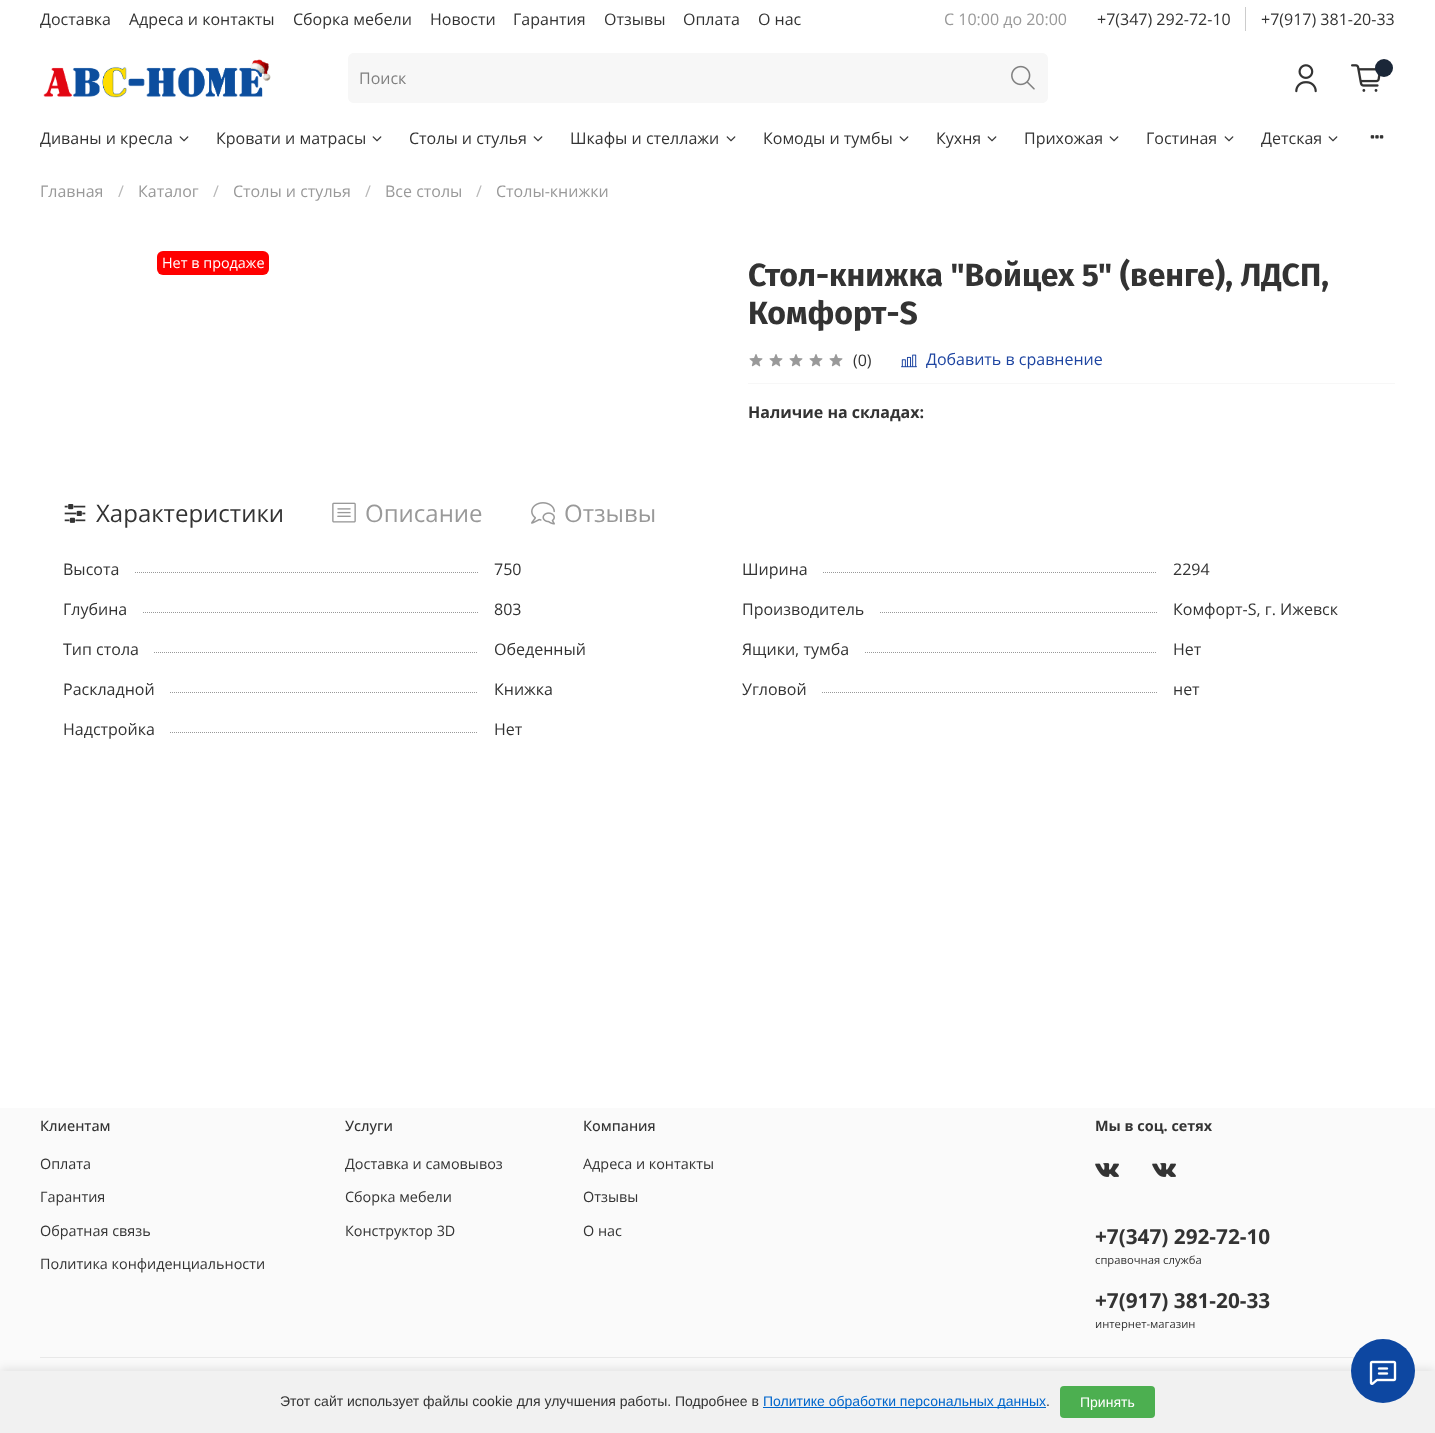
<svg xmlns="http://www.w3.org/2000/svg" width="1435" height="1433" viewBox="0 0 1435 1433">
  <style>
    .t1 { font: 16px Open Sans; fill: #333; }
    .t2 { font: 16px Open Sans; fill: #999; }
    .t3 { font: 16px Open Sans; fill: #808080; }
    .t4 { font: 16px Open Sans; fill: #b8b8b8; }
    .t5 { font: 14.4px Open Sans; fill: #fff; }
    .t6 { font: bold 32px Fira Sans; fill: #333; }
    .t7 { font: 16px Open Sans; fill: #1e45a1; }
    .t8 { font: bold 16px Open Sans; fill: #333; }
    .t9 { font: 24px Open Sans; fill: #333; }
    .t10 { font: 24px Open Sans; fill: #999; }
    .t11 { font: 500 14.4px Open Sans; fill: #333; }
    .t12 { font: 14.4px Open Sans; fill: #333; }
    .t13 { font: bold 14.4px Open Sans; fill: #333; }
    .t14 { font: bold 20.75px Open Sans; fill: #333; }
    .t15 { font: 11.25px Open Sans; fill: #333; }
    .t16 { font: 14px Liberation Sans; fill: #333; }
    .t17 { font: 14px Liberation Sans; fill: #06c; }
    .t18 { font: 14px Liberation Sans; fill: #fff; }
  </style>
  <rect width="100%" height="100%" fill="#fff"/>
  <text x="40" y="25" class="t1">Доставка</text>
  <text x="129" y="25" class="t1">Адреса и контакты</text>
  <text x="293" y="25" class="t1">Сборка мебели</text>
  <text x="430" y="25" class="t1">Новости</text>
  <text x="513" y="25" class="t1">Гарантия</text>
  <text x="604" y="25" class="t1">Отзывы</text>
  <text x="683" y="25" class="t1">Оплата</text>
  <text x="758" y="25" class="t1">О нас</text>
  <text x="944" y="25" class="t2">С 10:00 до 20:00</text>
  <rect x="1245" y="7" width="1" height="24" fill="#ccc"/>
  <text x="1097" y="25" class="t1">+7(347) 292-72-10</text>
  <text x="1261" y="25" class="t1">+7(917) 381-20-33</text>
  <image x="43" y="59" width="228" height="39" href="images/1.png"/>
  <path d="M354 53H998V103H354C350.5 103 348 100.5 348 97V59C348 55.5 350.5 53 354 53Z" fill="#f7f7f7"/>
  <text x="359" y="84" class="t3">Поиск</text>
  <path d="M998 53H1042C1045.5 53 1048 55.5 1048 59V97C1048 100.5 1045.5 103 1042 103H998Z" fill="#f7f7f7"/>
  <image x="1011" y="65" width="24" height="25" href="images/2.png"/>
  <image x="1295" y="64" width="22" height="29" href="images/3.png"/>
  <image x="1351" y="64" width="30" height="28" href="images/4.png"/>
  <circle cx="1384" cy="68" r="9" fill="#1b2738"/>
  <text x="40" y="144" class="t1">Диваны и кресла</text>
  <image x="179" y="136" width="10" height="6" href="images/5.png"/>
  <text x="216" y="144" class="t1">Кровати и матрасы</text>
  <image x="372" y="136" width="10" height="6" href="images/5.png"/>
  <text x="409" y="144" class="t1">Столы и стулья</text>
  <image x="533" y="136" width="10" height="6" href="images/5.png"/>
  <text x="570" y="144" class="t1">Шкафы и стеллажи</text>
  <image x="726" y="136" width="10" height="6" href="images/5.png"/>
  <text x="763" y="144" class="t1">Комоды и тумбы</text>
  <image x="899" y="136" width="10" height="6" href="images/5.png"/>
  <text x="936" y="144" class="t1">Кухня</text>
  <image x="987" y="136" width="10" height="6" href="images/5.png"/>
  <text x="1024" y="144" class="t1">Прихожая</text>
  <image x="1109" y="136" width="10" height="6" href="images/5.png"/>
  <text x="1146" y="144" class="t1">Гостиная</text>
  <image x="1224" y="136" width="10" height="6" href="images/5.png"/>
  <text x="1261" y="144" class="t1">Детская</text>
  <image x="1328" y="136" width="10" height="6" href="images/5.png"/>
  <image x="1370" y="135" width="14" height="4" href="images/6.png"/>
  <text x="40" y="197" class="t2">Главная</text>
  <text x="118" y="197" class="t4">/</text>
  <text x="138" y="197" class="t2">Каталог</text>
  <text x="213" y="197" class="t4">/</text>
  <text x="233" y="197" class="t2">Столы и стулья</text>
  <text x="365" y="197" class="t4">/</text>
  <text x="385" y="197" class="t2">Все столы</text>
  <text x="476" y="197" class="t4">/</text>
  <text x="496" y="197" class="t2">Столы-книжки</text>
  <rect x="157" y="251" width="112" height="24" rx="6" fill="#f00"/>
  <text x="162" y="268" class="t5">Нет в продаже</text>
  <text x="748" y="286" class="t6">Стол-книжка "Войцех 5" (венге), ЛДСП,</text>
  <text x="748" y="324" class="t6">Комфорт-S</text>
  <rect x="748" y="383" width="647" height="1" fill="#f7f7f7"/>
  <image x="749" y="354" width="14" height="13" href="images/7.png"/>
  <image x="769" y="354" width="14" height="13" href="images/7.png"/>
  <image x="789" y="354" width="14" height="13" href="images/7.png"/>
  <image x="809" y="354" width="14" height="13" href="images/7.png"/>
  <image x="829" y="354" width="14" height="13" href="images/7.png"/>
  <text x="853" y="366" class="t1">(0)</text>
  <image x="901" y="354" width="16" height="14" href="images/8.png"/>
  <text x="926" y="365" class="t7">Добавить в сравнение</text>
  <text x="748" y="418" class="t8">Наличие на складах:</text>
  <image x="64" y="504" width="22" height="19" href="images/9.png"/>
  <text x="96" y="522" class="t9">Характеристики</text>
  <image x="332" y="502" width="24" height="21" href="images/10.png"/>
  <text x="365" y="522" class="t10">Описание</text>
  <image x="531" y="502" width="24" height="23" href="images/11.png"/>
  <text x="564" y="522" class="t10">Отзывы</text>
  <text x="63" y="575" class="t1">Высота</text>
  <path d="M135 572.5H478" fill="none" stroke="#999" stroke-dasharray="1 1"/>
  <text x="494" y="575" class="t1">750</text>
  <text x="742" y="575" class="t1">Ширина</text>
  <path d="M823 572.5H1157" fill="none" stroke="#999" stroke-dasharray="1 1"/>
  <text x="1173" y="575" class="t1">2294</text>
  <text x="63" y="615" class="t1">Глубина</text>
  <path d="M143 612.5H478" fill="none" stroke="#999" stroke-dasharray="1 1"/>
  <text x="494" y="615" class="t1">803</text>
  <text x="742" y="615" class="t1">Производитель</text>
  <path d="M880 612.5H1157" fill="none" stroke="#999" stroke-dasharray="1 1"/>
  <text x="1173" y="615" class="t1">Комфорт-S, г. Ижевск</text>
  <text x="63" y="655" class="t1">Тип стола</text>
  <path d="M154 652.5H478" fill="none" stroke="#999" stroke-dasharray="1 1"/>
  <text x="494" y="655" class="t1">Обеденный</text>
  <text x="742" y="655" class="t1">Ящики, тумба</text>
  <path d="M865 652.5H1157" fill="none" stroke="#999" stroke-dasharray="1 1"/>
  <text x="1173" y="655" class="t1">Нет</text>
  <text x="63" y="695" class="t1">Раскладной</text>
  <path d="M170 692.5H478" fill="none" stroke="#999" stroke-dasharray="1 1"/>
  <text x="494" y="695" class="t1">Книжка</text>
  <text x="742" y="695" class="t1">Угловой</text>
  <path d="M822 692.5H1157" fill="none" stroke="#999" stroke-dasharray="1 1"/>
  <text x="1173" y="695" class="t1">нет</text>
  <text x="63" y="735" class="t1">Надстройка</text>
  <path d="M170 732.5H478" fill="none" stroke="#999" stroke-dasharray="1 1"/>
  <text x="494" y="735" class="t1">Нет</text>
  <rect x="0" y="1108" width="1435" height="263" fill="#fafafa"/>
  <text x="40" y="1131" class="t11">Клиентам</text>
  <text x="40" y="1169" class="t12">Оплата</text>
  <text x="40" y="1202" class="t12">Гарантия</text>
  <text x="40" y="1236" class="t12">Обратная связь</text>
  <text x="40" y="1269" class="t12">Политика конфиденциальности</text>
  <text x="345" y="1131" class="t11">Услуги</text>
  <text x="345" y="1169" class="t12">Доставка и самовывоз</text>
  <text x="345" y="1202" class="t12">Сборка мебели</text>
  <text x="345" y="1236" class="t12">Конструктор 3D</text>
  <text x="583" y="1131" class="t11">Компания</text>
  <text x="583" y="1169" class="t12">Адреса и контакты</text>
  <text x="583" y="1202" class="t12">Отзывы</text>
  <text x="583" y="1236" class="t12">О нас</text>
  <text x="1095" y="1131" class="t13">Мы в соц. сетях</text>
  <image x="1095" y="1163" width="24" height="14" href="images/12.png"/>
  <image x="1152" y="1163" width="24" height="14" href="images/12.png"/>
  <text x="1095" y="1244" class="t14">+7(347) 292-72-10</text>
  <text x="1095" y="1264" class="t15">справочная служба</text>
  <text x="1095" y="1308" class="t14">+7(917) 381-20-33</text>
  <text x="1095" y="1328" class="t15">интернет-магазин</text>
  <rect x="40" y="1357" width="1315" height="1" fill="#e8e8e8"/>
  <rect x="0" y="1369" width="1435" height="62" fill="#0000001a" filter="blur(5px)"/>
  <rect x="0" y="1371" width="1435" height="62" fill="#f1f1f1"/>
  <text x="280" y="1406" class="t16">Этот сайт использует файлы cookie для улучшения работы. Подробнее в</text>
  <rect x="763" y="1407" width="283" height="1" fill="#06c"/>
  <text x="763" y="1406" class="t17">Политике обработки персональных данных</text>
  <text x="1046" y="1406" class="t16">.</text>
  <rect x="1060" y="1386" width="95" height="32" rx="4" fill="#4caf50"/>
  <text x="1080" y="1407" class="t18">Принять</text>
  <circle cx="1383" cy="1371" r="32" fill="#0d47a1"/>
  <image x="1369" y="1360" width="28" height="25" href="images/13.png"/>
</svg>
